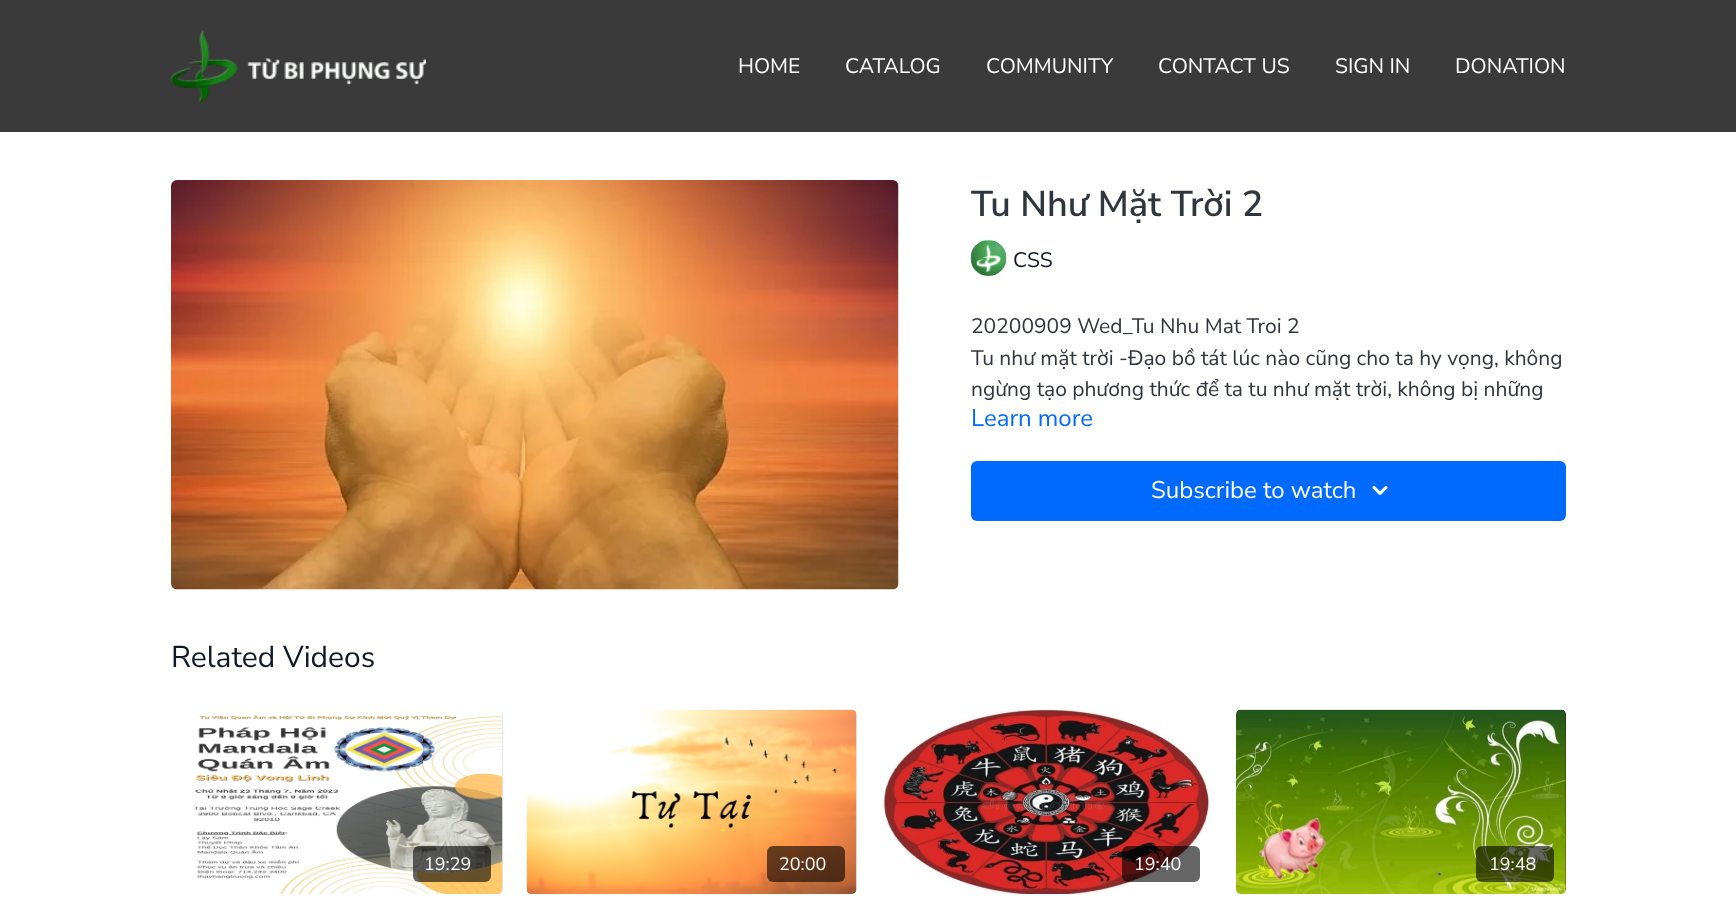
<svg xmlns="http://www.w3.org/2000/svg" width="1736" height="906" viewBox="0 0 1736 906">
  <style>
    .t1 { font: 21px Nunito Sans; fill: #fff; }
    .t2 { font: 600 36px Nunito Sans; fill: #30363e; }
    .t3 { font: 21px Nunito Sans; fill: #111827; }
    .t4 { font: 21px Nunito Sans; fill: #30363e; }
    .t5 { font: 24px Nunito Sans; fill: #006aff; }
    .t6 { font: 24px Nunito Sans; fill: #fff; }
    .t7 { font: 30px Nunito Sans; fill: #111827; }
    .t8 { font: 18px Nunito Sans; fill: #fff; }
  </style>
  <defs>
    <linearGradient id="g1" gradientUnits="userSpaceOnUse" x1="171" y1="802" x2="503" y2="802"><stop offset="0.08" stop-color="#dedede"/><stop offset="0.18" stop-color="#e0e0e0"/><stop offset="0.33" stop-color="#e3e3e3"/></linearGradient>
    <linearGradient id="g2" gradientUnits="userSpaceOnUse" x1="527" y1="802" x2="857" y2="802"><stop offset="0.08" stop-color="#dedede"/><stop offset="0.18" stop-color="#e0e0e0"/><stop offset="0.33" stop-color="#e3e3e3"/></linearGradient>
  </defs>
  <rect width="100%" height="100%" fill="#fff"/>
  <rect x="0" y="0" width="1736" height="132" fill="#3a3a3b"/>
  <image x="171" y="30" width="255" height="72" href="images/1.png"/>
  <text x="738" y="73" class="t1">HOME</text>
  <text x="845" y="73" class="t1">CATALOG</text>
  <text x="986" y="73" class="t1">COMMUNITY</text>
  <text x="1158" y="73" class="t1">CONTACT US</text>
  <text x="1335" y="73" class="t1">SIGN IN</text>
  <text x="1455" y="73" class="t1">DONATION</text>
  <image x="171" y="180" width="728" height="410" href="images/2.png"/>
  <text x="971" y="216" class="t2">Tu Như Mặt Trời 2</text>
  <image x="970" y="240" width="37" height="36" href="images/3.png"/>
  <text x="1013" y="267" class="t3">CSS</text>
  <text x="971" y="333" class="t4">20200909 Wed_Tu Nhu Mat Troi 2</text>
  <text x="971" y="365" class="t4">Tu như mặt trời -Đạo bồ tát lúc nào cũng cho ta hy vọng, không</text>
  <text x="971" y="396" class="t4">ngừng tạo phương thức để ta tu như mặt trời, không bị những</text>
  <text x="971" y="426" class="t5">Learn more</text>
  <rect x="971" y="461" width="595" height="60" rx="6" fill="#006aff"/>
  <text x="1151" y="498" class="t6">Subscribe to watch</text>
  <image x="1372" y="486" width="16" height="9" href="images/4.png"/>
  <text x="171" y="667" class="t7">Related Videos</text>
  <rect x="171" y="710" width="332" height="184" rx="6" fill="url(#g1)"/>
  <image x="171" y="710" width="332" height="184" href="images/5.png"/>
  <rect x="413" y="846" width="78" height="36" rx="6" fill="#00000099"/>
  <text x="424" y="870" class="t8">19:29</text>
  <rect x="527" y="710" width="330" height="184" rx="6" fill="url(#g2)"/>
  <image x="526" y="709" width="331" height="185" href="images/6.png"/>
  <rect x="767" y="846" width="78" height="36" rx="6" fill="#00000099"/>
  <text x="779" y="870" class="t8">20:00</text>
  <image x="881" y="709" width="331" height="185" href="images/7.png"/>
  <rect x="1122" y="846" width="78" height="36" rx="6" fill="#00000099"/>
  <text x="1134" y="870" class="t8">19:40</text>
  <image x="1236" y="709" width="330" height="185" href="images/8.png"/>
  <rect x="1476" y="846" width="78" height="36" rx="6" fill="#00000099"/>
  <text x="1489" y="870" class="t8">19:48</text>
</svg>
